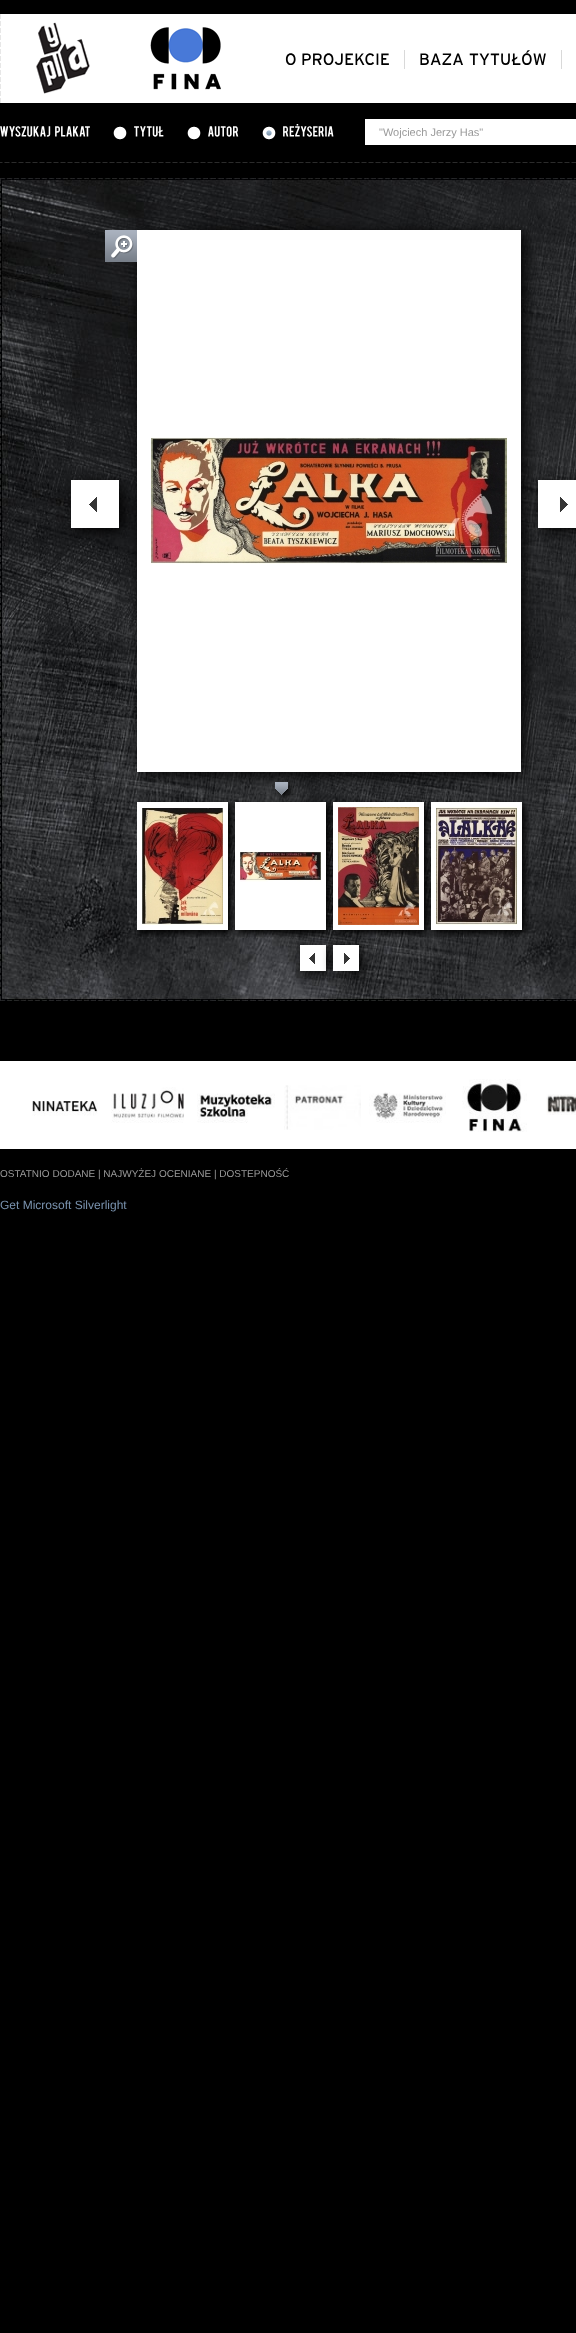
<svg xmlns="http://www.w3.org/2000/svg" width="576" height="2333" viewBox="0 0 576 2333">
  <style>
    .t1 { font: 11px Liberation Sans; fill: #9a9a9a; }
    .t2 { font: 10px Liberation Sans; fill: #9a9a9a; }
    .t3 { font: 12px Liberation Sans; fill: #7a93af; }
  </style>
  <defs>
    <clipPath id="clip1"><rect x="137" y="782" width="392" height="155"/></clipPath>
  </defs>
  <rect width="100%" height="100%" fill="#000"/>
  <rect x="90" y="14" width="486" height="89" fill="#fff"/>
  <image x="0" y="14" width="90" height="89" href="images/1.png"/>
  <image x="150" y="27" width="71" height="63" href="images/2.png"/>
  <rect x="404" y="50" width="1" height="19" fill="#d9d9d9"/>
  <image x="285" y="53" width="11" height="12" href="images/3.png"/>
  <image x="302" y="53" width="87" height="12" href="images/4.png"/>
  <rect x="561" y="50" width="1" height="19" fill="#d9d9d9"/>
  <image x="420" y="53" width="43" height="12" href="images/5.png"/>
  <image x="469" y="50" width="77" height="15" href="images/6.png"/>
  <image x="0" y="162" width="576" height="1" href="images/7.png"/>
  <image x="0" y="126" width="51" height="11" href="images/8.png"/>
  <image x="55" y="126" width="35" height="11" href="images/9.png"/>
  <image x="113" y="126" width="14" height="14" href="images/10.png"/>
  <image x="134" y="126" width="30" height="11" href="images/11.png"/>
  <image x="187" y="126" width="14" height="14" href="images/10.png"/>
  <image x="208" y="126" width="31" height="11" href="images/12.png"/>
  <image x="262" y="126" width="14" height="14" href="images/13.png"/>
  <image x="283" y="124" width="51" height="13" href="images/14.png"/>
  <rect x="365" y="119" width="211" height="26" fill="#fff"/>
  <text x="379" y="136" class="t1">"Wojciech Jerzy Has"</text>
  <image x="0" y="178" width="576" height="823" href="images/15.png"/>
  <rect x="140" y="233" width="384" height="542" fill="#000" filter="blur(7px)"/>
  <rect x="137" y="230" width="384" height="542" fill="#fff"/>
  <rect x="74" y="483" width="48" height="48" fill="#000" filter="blur(7px)"/>
  <image x="71" y="480" width="48" height="48" href="images/16.png"/>
  <image x="105" y="230" width="32" height="32" href="images/17.png"/>
  <image x="151" y="437" width="356" height="127" href="images/18.png"/>
  <rect x="541" y="483" width="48" height="48" fill="#000" filter="blur(7px)"/>
  <image x="538" y="480" width="38" height="48" href="images/19.png"/>
  <g clip-path="url(#clip1)">
    <rect x="140" y="805" width="91" height="128" fill="#000" filter="blur(3.5px)"/>
  </g>
  <rect x="137" y="802" width="91" height="128" fill="#fff"/>
  <image x="142" y="807" width="81" height="118" href="images/20.png"/>
  <g clip-path="url(#clip1)">
    <rect x="238" y="805" width="91" height="128" fill="#000" filter="blur(3.5px)"/>
  </g>
  <rect x="235" y="802" width="91" height="128" fill="#fff"/>
  <image x="275" y="782" width="19" height="18" href="images/21.png"/>
  <image x="240" y="851" width="81" height="31" href="images/22.png"/>
  <g clip-path="url(#clip1)">
    <rect x="336" y="805" width="91" height="128" fill="#000" filter="blur(3.5px)"/>
  </g>
  <rect x="333" y="802" width="91" height="128" fill="#fff"/>
  <image x="338" y="807" width="81" height="118" href="images/23.png"/>
  <g clip-path="url(#clip1)">
    <rect x="434" y="805" width="91" height="128" fill="#000" filter="blur(3.5px)"/>
  </g>
  <rect x="431" y="802" width="91" height="128" fill="#fff"/>
  <image x="436" y="807" width="81" height="118" href="images/24.png"/>
  <rect x="303" y="948" width="26" height="26" fill="#000" filter="blur(7px)"/>
  <image x="300" y="945" width="26" height="26" href="images/25.png"/>
  <rect x="336" y="948" width="26" height="26" fill="#000" filter="blur(7px)"/>
  <image x="333" y="945" width="26" height="26" href="images/26.png"/>
  <rect x="0" y="1061" width="576" height="88" fill="#fff"/>
  <image x="32" y="1101" width="66" height="15" href="images/27.png"/>
  <image x="111" y="1087" width="73" height="36" href="images/28.png"/>
  <image x="197" y="1093" width="78" height="30" href="images/29.png"/>
  <image x="284" y="1085" width="77" height="45" href="images/30.png"/>
  <image x="369" y="1092" width="77" height="31" href="images/31.png"/>
  <image x="462" y="1079" width="65" height="53" href="images/32.png"/>
  <image x="546" y="1094" width="30" height="21" href="images/33.png"/>
  <text x="0" y="1177" class="t2">OSTATNIO DODANE | NAJWYŻEJ OCENIANE | DOSTEPNOŚĆ</text>
  <text x="0" y="1209" class="t3">Get Microsoft Silverlight</text>
</svg>
